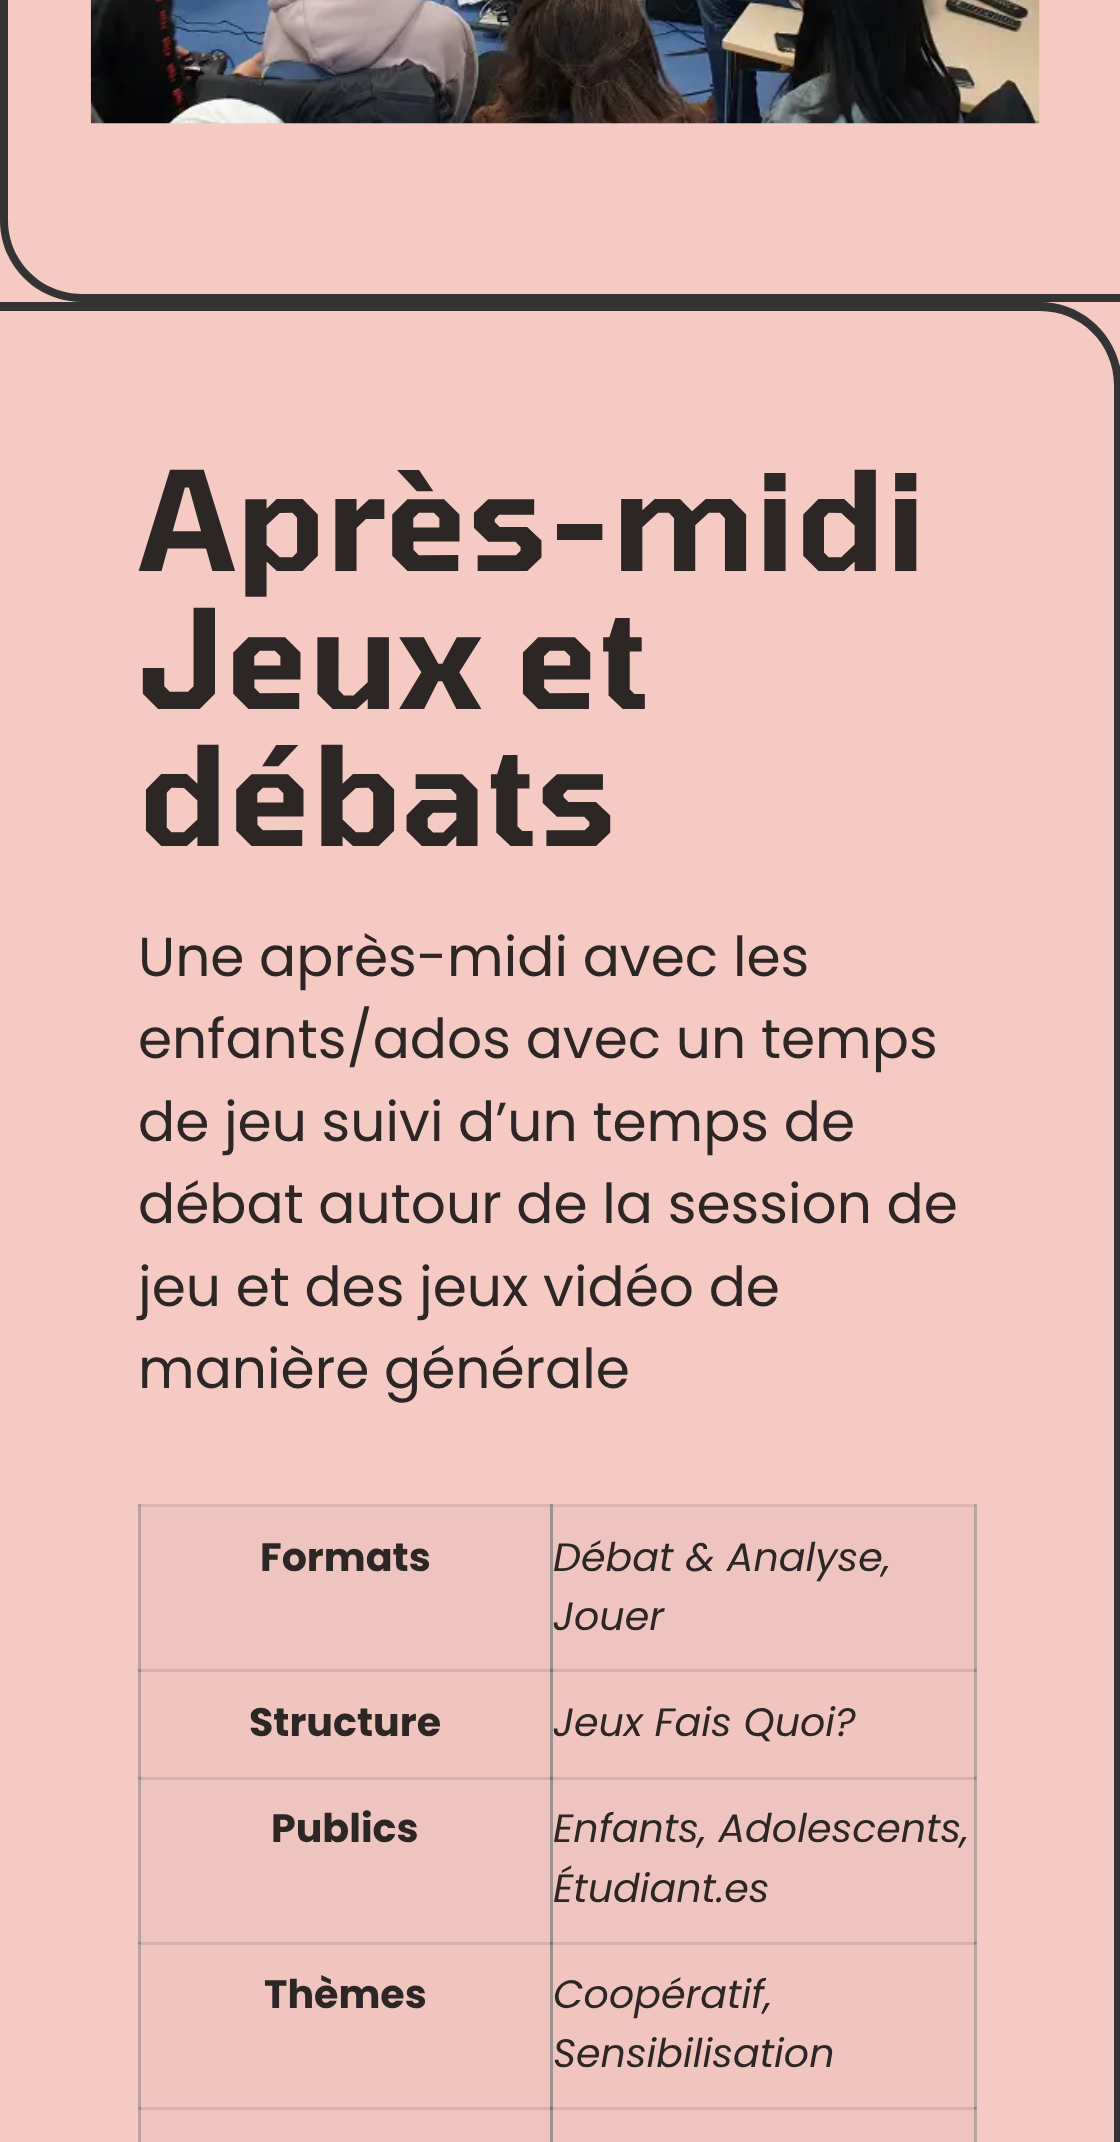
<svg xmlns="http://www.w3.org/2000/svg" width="1120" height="2142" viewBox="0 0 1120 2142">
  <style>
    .t1 { font: 600 137.5px Tomorrow; fill: #2c2625; }
    .t2 { font: 55px Poppins; fill: #2c2625; }
    .t3 { font: bold 39.6px Poppins; fill: #2c2625; }
    .t4 { font: italic 39.6px Poppins; fill: #2c2625; }
  </style>
  <rect width="100%" height="100%" fill="#f5cac3"/>
  <rect x="138" y="1504" width="2" height="638" fill="#bba5a2"/>
  <rect x="976" y="1504" width="1" height="638" fill="#bba5a2"/>
  <rect x="138" y="1669" width="3" height="3" fill="#948b89"/>
  <rect x="974" y="1669" width="3" height="3" fill="#9e9391"/>
  <rect x="138" y="1779" width="3" height="1" fill="#a89592"/>
  <rect x="138" y="1777" width="3" height="2" fill="#948b89"/>
  <rect x="974" y="1777" width="3" height="2" fill="#9e9391"/>
  <rect x="138" y="1944" width="3" height="1" fill="#a89592"/>
  <rect x="138" y="1942" width="3" height="2" fill="#948b89"/>
  <rect x="974" y="1942" width="3" height="2" fill="#9e9391"/>
  <rect x="138" y="2109" width="3" height="1" fill="#a89592"/>
  <rect x="138" y="2107" width="3" height="2" fill="#948b89"/>
  <rect x="974" y="2107" width="3" height="2" fill="#9e9391"/>
  <path d="M82-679H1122V302H82C37 302 0 266 0 220V-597C0-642 37-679 82-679ZM82-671H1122V294H82C41 294 8 261 8 220V-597C8-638 41-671 82-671Z" fill="#333" fill-rule="evenodd"/>
  <image x="90" y="0" width="950" height="124" href="images/1.png"/>
  <path d="M0 302H1040C1085 302 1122 339 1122 385V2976C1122 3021 1085 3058 1040 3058H0ZM0 311H1040C1081 311 1114 344 1114 385V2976C1114 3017 1081 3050 1040 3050H0Z" fill="#333" fill-rule="evenodd"/>
  <text x="138" y="571" class="t1">Après-midi</text>
  <text x="138" y="709" class="t1">Jeux et</text>
  <text x="138" y="846" class="t1">débats</text>
  <text x="138" y="976" class="t2">Une après-midi avec les</text>
  <text x="138" y="1058" class="t2">enfants/ados avec un temps</text>
  <text x="138" y="1141" class="t2">de jeu suivi d’un temps de</text>
  <text x="138" y="1223" class="t2">débat autour de la session de</text>
  <text x="138" y="1306" class="t2">jeu et des jeux vidéo de</text>
  <text x="138" y="1388" class="t2">manière générale</text>
  <rect x="138" y="1504" width="838" height="3" fill="#ddb6b0"/>
  <rect x="138" y="1504" width="3" height="3" fill="#af9b98"/>
  <rect x="550" y="1504" width="3" height="3" fill="#988e8c"/>
  <rect x="974" y="1504" width="2" height="3" fill="#af9b98"/>
  <rect x="141" y="1507" width="409" height="162" fill="#edc5be"/>
  <rect x="140" y="1507" width="1" height="165" fill="#b7a39f"/>
  <rect x="140" y="1669" width="836" height="3" fill="#d5b1ab"/>
  <rect x="550" y="1507" width="3" height="270" fill="#9c9290"/>
  <rect x="140" y="1669" width="1" height="3" fill="#938a88"/>
  <rect x="550" y="1669" width="3" height="3" fill="#767474"/>
  <text x="260" y="1571" class="t3">Formats</text>
  <rect x="553" y="1507" width="421" height="162" fill="#edc5be"/>
  <rect x="974" y="1507" width="2" height="165" fill="#b7a39f"/>
  <rect x="974" y="1669" width="2" height="3" fill="#8c8382"/>
  <text x="553" y="1571" class="t4">Débat &amp; Analyse,</text>
  <text x="553" y="1630" class="t4">Jouer</text>
  <rect x="141" y="1672" width="409" height="105" fill="#efc5be"/>
  <rect x="140" y="1672" width="1" height="105" fill="#b8a39f"/>
  <text x="249" y="1736" class="t3">Structure</text>
  <rect x="553" y="1672" width="421" height="105" fill="#efc5be"/>
  <rect x="974" y="1672" width="2" height="105" fill="#b8a39f"/>
  <text x="553" y="1736" class="t4">Jeux Fais Quoi?</text>
  <rect x="141" y="1780" width="409" height="162" fill="#edc5be"/>
  <rect x="140" y="1777" width="836" height="3" fill="#d5b1ab"/>
  <rect x="140" y="1777" width="1" height="167" fill="#b7a39f"/>
  <rect x="140" y="1777" width="1" height="3" fill="#a5938f"/>
  <rect x="140" y="1777" width="1" height="2" fill="#938a88"/>
  <rect x="140" y="1942" width="836" height="2" fill="#d5b1ab"/>
  <rect x="550" y="1777" width="3" height="167" fill="#9c9290"/>
  <rect x="550" y="1779" width="3" height="1" fill="#7e7675"/>
  <rect x="550" y="1777" width="3" height="2" fill="#767474"/>
  <rect x="140" y="1942" width="1" height="2" fill="#938a88"/>
  <rect x="550" y="1942" width="3" height="2" fill="#767474"/>
  <text x="271" y="1842" class="t3">Publics</text>
  <rect x="553" y="1780" width="421" height="162" fill="#edc5be"/>
  <rect x="974" y="1777" width="2" height="167" fill="#b7a39f"/>
  <rect x="974" y="1777" width="2" height="3" fill="#a5938f"/>
  <rect x="974" y="1777" width="2" height="2" fill="#8c8382"/>
  <rect x="974" y="1942" width="2" height="2" fill="#8c8382"/>
  <text x="553" y="1842" class="t4">Enfants, Adolescents,</text>
  <text x="553" y="1902" class="t4">Étudiant.es</text>
  <rect x="141" y="1945" width="409" height="162" fill="#efc5be"/>
  <rect x="140" y="1944" width="836" height="1" fill="#d7b1ab"/>
  <rect x="140" y="1944" width="1" height="165" fill="#b8a39f"/>
  <rect x="140" y="1944" width="1" height="1" fill="#a6938f"/>
  <rect x="140" y="2107" width="836" height="2" fill="#d7b1ab"/>
  <rect x="550" y="1944" width="3" height="165" fill="#9c9290"/>
  <rect x="550" y="1944" width="3" height="1" fill="#7e7675"/>
  <rect x="140" y="2107" width="1" height="2" fill="#938a88"/>
  <text x="264" y="2008" class="t3">Thèmes</text>
  <rect x="553" y="1945" width="421" height="162" fill="#efc5be"/>
  <rect x="974" y="1944" width="2" height="165" fill="#b8a39f"/>
  <rect x="974" y="1944" width="2" height="1" fill="#a6938f"/>
  <rect x="974" y="2107" width="2" height="2" fill="#8c8382"/>
  <text x="553" y="2008" class="t4">Coopératif,</text>
  <text x="553" y="2067" class="t4">Sensibilisation</text>
  <rect x="141" y="2110" width="409" height="32" fill="#edc5be"/>
  <rect x="140" y="2109" width="836" height="1" fill="#d5b1ab"/>
  <rect x="140" y="2109" width="1" height="33" fill="#b7a39f"/>
  <rect x="140" y="2109" width="1" height="1" fill="#a5938f"/>
  <rect x="550" y="2107" width="3" height="35" fill="#9c9290"/>
  <rect x="550" y="2109" width="3" height="1" fill="#7e7675"/>
  <rect x="550" y="2107" width="3" height="2" fill="#767474"/>
  <rect x="553" y="2110" width="421" height="32" fill="#edc5be"/>
  <rect x="974" y="2109" width="2" height="33" fill="#b7a39f"/>
  <rect x="974" y="2109" width="2" height="1" fill="#a5938f"/>
</svg>
